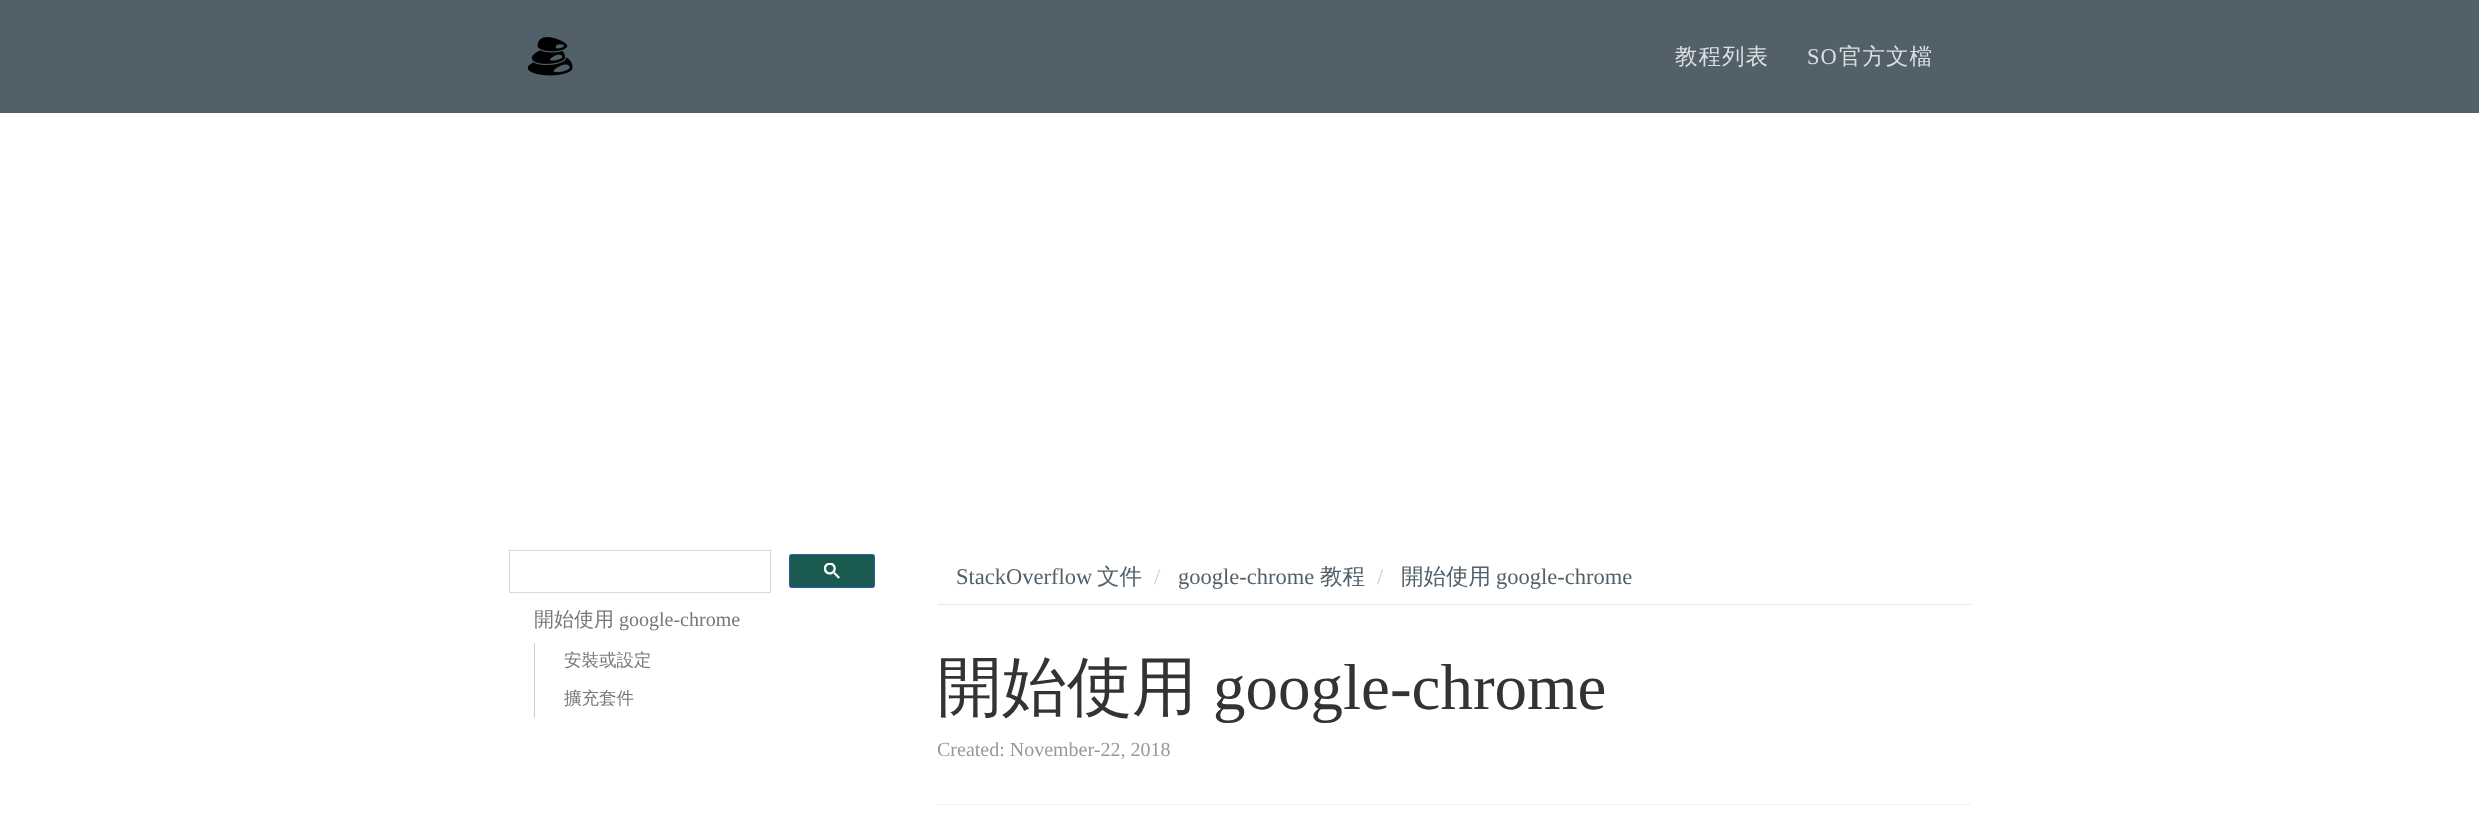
<svg xmlns="http://www.w3.org/2000/svg" width="2479" height="818" viewBox="0 0 2479 818">
  <style>
    .t1 { font: 500 22.5px WenQuanYi Zen Hei; letter-spacing: 1px; fill: #dcdfe1; }
    .t2 { font: 22.5px Liberation Serif; letter-spacing: 1px; fill: #dcdfe1; }
    .t3 { font: 500 20px WenQuanYi Zen Hei; fill: #777; }
    .t4 { font: 20px Liberation Serif; fill: #777; }
    .t5 { font: 500 17.5px WenQuanYi Zen Hei; fill: #777; }
    .t6 { font: 22.5px Liberation Serif; fill: #526069; }
    .t7 { font: 500 22.5px WenQuanYi Zen Hei; fill: #526069; }
    .t8 { font: 22.5px Liberation Serif; fill: #ccc; }
    .t9 { font: 500 65px WenQuanYi Zen Hei; fill: #333; }
    .t10 { font: 65px Liberation Serif; fill: #333; }
    .t11 { font: 20px Liberation Serif; fill: #999; }
  </style>
  <rect width="100%" height="100%" fill="#fff"/>
  <rect x="0" y="0" width="2479" height="113" fill="#526069"/>
  <image x="528" y="37" width="45" height="39" href="images/1.png"/>
  <text x="1675" y="64" class="t1">教程列表</text>
  <text x="1807" y="64" class="t2">SO</text>
  <text x="1839" y="64" class="t1">官方文檔</text>
  <rect x="509.5" y="550.5" width="261" height="42" fill="none" stroke="#d9d9d9"/>
  <rect x="789.5" y="554.5" width="85" height="33" rx="2" fill="#1b5a50" stroke="#2f5bb7"/>
  <image x="824" y="563" width="16" height="16" href="images/2.png"/>
  <text x="534" y="626" class="t3">開始使用</text>
  <text x="619" y="626" class="t4">google-chrome</text>
  <rect x="534" y="643" width="1" height="75" fill="#ccc"/>
  <text x="564" y="666" class="t5">安裝或設定</text>
  <text x="564" y="704" class="t5">擴充套件</text>
  <rect x="938" y="604" width="1033" height="1" fill="#e7e7e7"/>
  <text x="956" y="584" class="t6">StackOverflow</text>
  <text x="1097" y="584" class="t7">文件</text>
  <text x="1154" y="584" class="t8">/</text>
  <text x="1178" y="584" class="t6">google-chrome</text>
  <text x="1320" y="584" class="t7">教程</text>
  <text x="1377" y="584" class="t8">/</text>
  <text x="1401" y="584" class="t7">開始使用</text>
  <text x="1496" y="584" class="t6">google-chrome</text>
  <rect x="938" y="804" width="1033" height="1" fill="#f1f1f1"/>
  <text x="937" y="709" class="t9">開始使用</text>
  <text x="1213" y="709" class="t10">google-chrome</text>
  <text x="937" y="756" class="t11">Created: November-22, 2018</text>
</svg>
